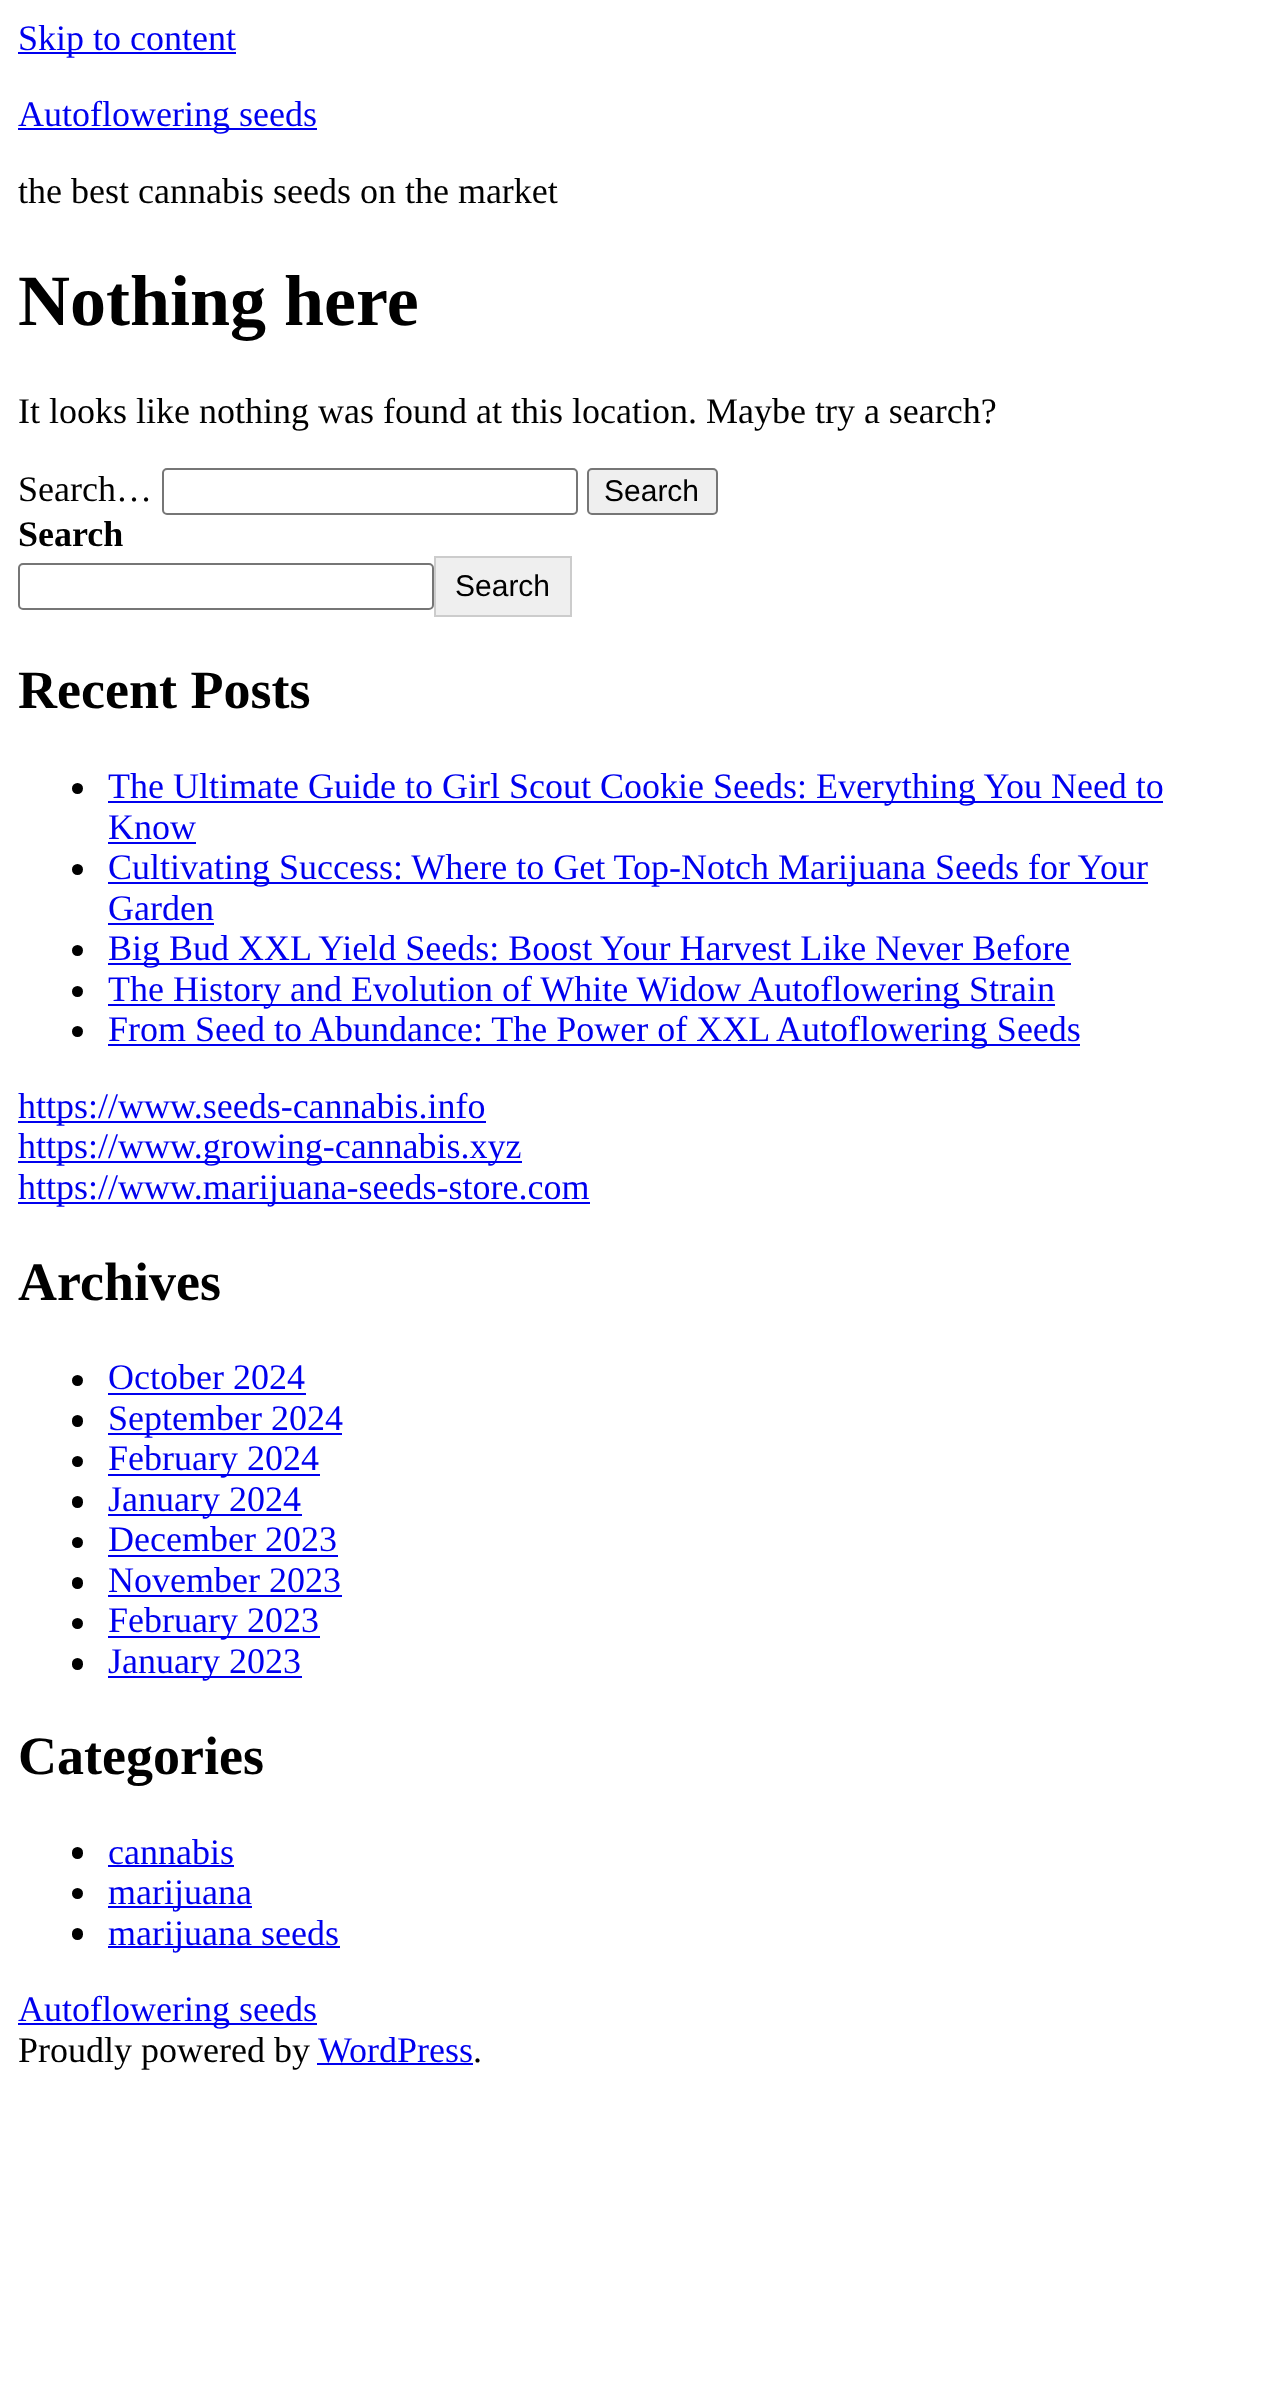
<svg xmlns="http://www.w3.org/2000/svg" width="1268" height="2389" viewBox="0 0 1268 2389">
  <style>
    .t1 { font: 36px Liberation Serif; fill: #00e; }
    .t2 { font: 36px Liberation Serif; fill: #000; }
    .t3 { font: bold 72px Liberation Serif; fill: #000; }
    .t4 { font: 30px Liberation Sans; fill: #000; }
    .t5 { font: bold 36px Liberation Serif; fill: #000; }
    .t6 { font: bold 54px Liberation Serif; fill: #000; }
  </style>
  <rect width="100%" height="100%" fill="#fff"/>
  <rect x="18" y="52" width="218" height="2" fill="#00e"/>
  <text x="18" y="50" class="t1">Skip to content</text>
  <rect x="18" y="128" width="299" height="2" fill="#00e"/>
  <text x="18" y="126" class="t1">Autoflowering seeds</text>
  <text x="18" y="203" class="t2">the best cannabis seeds on the market</text>
  <text x="18" y="325" class="t3">Nothing here</text>
  <text x="18" y="423" class="t2">It looks like nothing was found at this location. Maybe try a search?</text>
  <text x="18" y="501" class="t2">Search…</text>
  <rect x="163" y="469" width="414" height="45" rx="4" fill="none" stroke="#767676" stroke-width="2"/>
  <rect x="588" y="469" width="129" height="45" rx="4" fill="#efefef" stroke="#767676" stroke-width="2"/>
  <text x="604" y="501" class="t4">Search</text>
  <text x="18" y="546" class="t5">Search</text>
  <rect x="19" y="564" width="414" height="45" rx="4" fill="none" stroke="#767676" stroke-width="2"/>
  <rect x="435" y="557" width="136" height="59" fill="#efefef" stroke="#ccc" stroke-width="2"/>
  <text x="455" y="596" class="t4">Search</text>
  <text x="18" y="708" class="t6">Recent Posts</text>
  <circle cx="77.5" cy="788.5" r="5.5" fill="#000"/>
  <rect x="108" y="801" width="1055" height="2" fill="#00e"/>
  <text x="108" y="798" class="t1">The Ultimate Guide to Girl Scout Cookie Seeds: Everything You Need to</text>
  <text x="108" y="839" class="t1">Know</text>
  <rect x="108" y="842" width="88" height="2" fill="#00e"/>
  <circle cx="77.5" cy="869.5" r="5.5" fill="#000"/>
  <rect x="108" y="882" width="1040" height="2" fill="#00e"/>
  <text x="108" y="879" class="t1">Cultivating Success: Where to Get Top-Notch Marijuana Seeds for Your</text>
  <text x="108" y="920" class="t1">Garden</text>
  <rect x="108" y="923" width="106" height="2" fill="#00e"/>
  <circle cx="77.5" cy="950.5" r="5.5" fill="#000"/>
  <rect x="108" y="963" width="963" height="2" fill="#00e"/>
  <text x="108" y="960" class="t1">Big Bud XXL Yield Seeds: Boost Your Harvest Like Never Before</text>
  <circle cx="77.5" cy="991.5" r="5.5" fill="#000"/>
  <rect x="108" y="1004" width="947" height="2" fill="#00e"/>
  <text x="108" y="1001" class="t1">The History and Evolution of White Widow Autoflowering Strain</text>
  <circle cx="77.5" cy="1031.5" r="5.5" fill="#000"/>
  <rect x="108" y="1044" width="972" height="2" fill="#00e"/>
  <text x="108" y="1041" class="t1">From Seed to Abundance: The Power of XXL Autoflowering Seeds</text>
  <rect x="18" y="1121" width="468" height="2" fill="#00e"/>
  <text x="18" y="1118" class="t1">https://www.seeds-cannabis.info</text>
  <rect x="18" y="1161" width="504" height="2" fill="#00e"/>
  <text x="18" y="1158" class="t1">https://www.growing-cannabis.xyz</text>
  <rect x="18" y="1202" width="572" height="2" fill="#00e"/>
  <text x="18" y="1199" class="t1">https://www.marijuana-seeds-store.com</text>
  <text x="18" y="1300" class="t6">Archives</text>
  <circle cx="77.5" cy="1380.5" r="5.5" fill="#000"/>
  <text x="108" y="1389" class="t1">October 2024</text>
  <rect x="108" y="1393" width="198" height="2" fill="#00e"/>
  <rect x="72" y="1415" width="11" height="12" rx="5.5" fill="#000"/>
  <rect x="108" y="1433" width="234" height="2" fill="#00e"/>
  <text x="108" y="1430" class="t1">September 2024</text>
  <circle cx="77.5" cy="1461.5" r="5.5" fill="#000"/>
  <rect x="108" y="1474" width="212" height="2" fill="#00e"/>
  <text x="108" y="1470" class="t1">February 2024</text>
  <rect x="72" y="1496" width="11" height="12" rx="5.5" fill="#000"/>
  <rect x="108" y="1514" width="194" height="2" fill="#00e"/>
  <text x="108" y="1511" class="t1">January 2024</text>
  <circle cx="77.5" cy="1542.5" r="5.5" fill="#000"/>
  <text x="108" y="1551" class="t1">December 2023</text>
  <rect x="108" y="1555" width="230" height="2" fill="#00e"/>
  <rect x="72" y="1577" width="11" height="12" rx="5.5" fill="#000"/>
  <text x="108" y="1592" class="t1">November 2023</text>
  <rect x="108" y="1595" width="234" height="2" fill="#00e"/>
  <circle cx="77.5" cy="1623.5" r="5.5" fill="#000"/>
  <rect x="108" y="1636" width="212" height="2" fill="#00e"/>
  <text x="108" y="1632" class="t1">February 2023</text>
  <rect x="72" y="1658" width="11" height="12" rx="5.5" fill="#000"/>
  <rect x="108" y="1676" width="194" height="2" fill="#00e"/>
  <text x="108" y="1673" class="t1">January 2023</text>
  <text x="18" y="1774" class="t6">Categories</text>
  <rect x="72" y="1847" width="11" height="12" rx="5.5" fill="#000"/>
  <text x="108" y="1864" class="t1">cannabis</text>
  <rect x="108" y="1865" width="126" height="2" fill="#00e"/>
  <circle cx="77.5" cy="1893.5" r="5.5" fill="#000"/>
  <rect x="108" y="1906" width="144" height="2" fill="#00e"/>
  <text x="108" y="1904" class="t1">marijuana</text>
  <rect x="72" y="1928" width="11" height="12" rx="5.5" fill="#000"/>
  <rect x="108" y="1946" width="232" height="2" fill="#00e"/>
  <text x="108" y="1945" class="t1">marijuana seeds</text>
  <rect x="18" y="2023" width="299" height="2" fill="#00e"/>
  <text x="18" y="2021" class="t1">Autoflowering seeds</text>
  <text x="18" y="2062" class="t2">Proudly powered by</text>
  <text x="318" y="2062" class="t1">WordPress</text>
  <rect x="317" y="2063" width="156" height="2" fill="#00e"/>
  <text x="473" y="2062" class="t2">.</text>
</svg>
